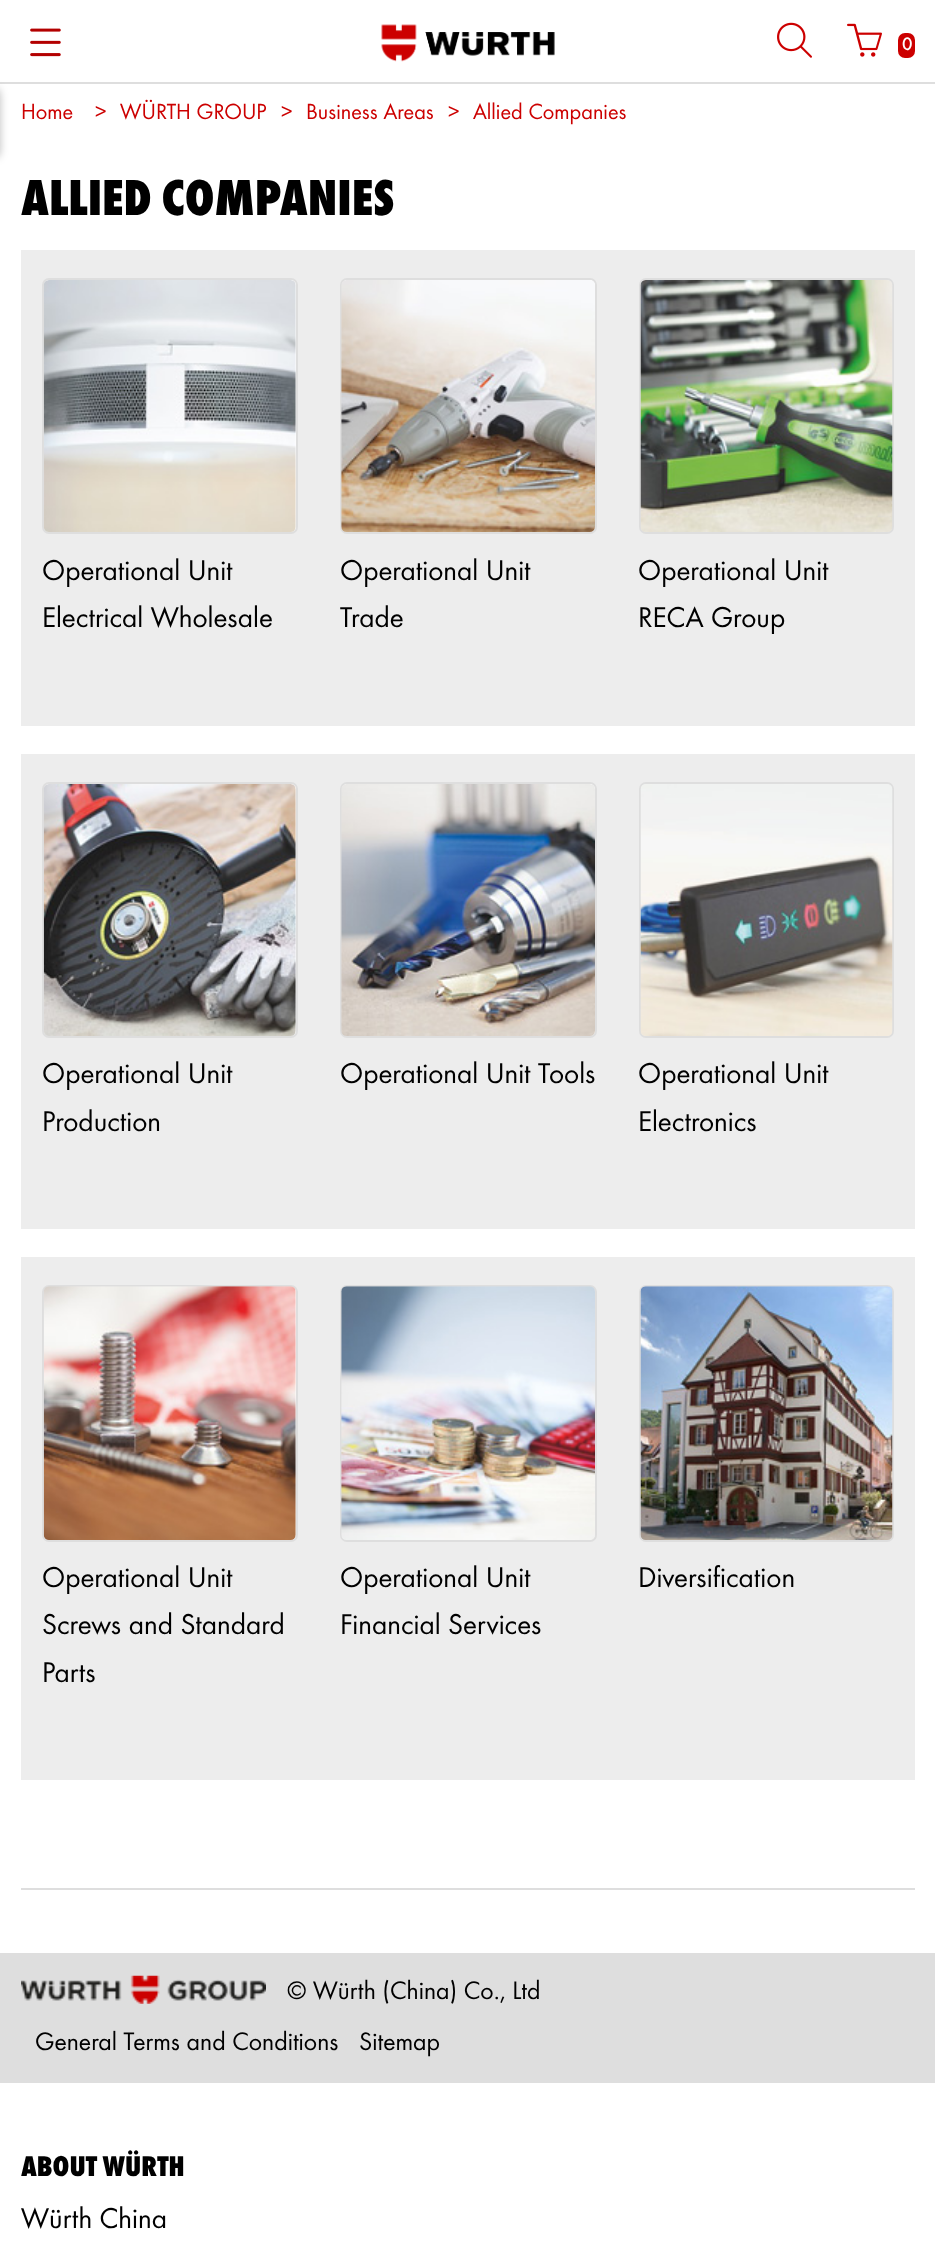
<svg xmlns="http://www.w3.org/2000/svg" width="935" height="2260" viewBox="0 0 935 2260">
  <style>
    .t1 { font: bold 18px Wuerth; fill: #fff; }
    .t2 { font: 22.75px Wuerth; fill: #c00; }
    .t3 { font: 800 52.5px Wuerth; fill: #000; }
    .t4 { font: 29.75px Wuerth; fill: #000; }
    .t5 { font: 26.25px Wuerth; fill: #000; }
    .t6 { font: 800 29.75px Wuerth; fill: #000; }
  </style>
  <rect width="100%" height="100%" fill="#fff"/>
  <rect x="0" y="82" width="935" height="2" fill="#dedede"/>
  <image x="30" y="28" width="31" height="29" href="images/1.png"/>
  <image x="381" y="24" width="174" height="38" href="images/2.png"/>
  <image x="777" y="22" width="35" height="36" href="images/3.png"/>
  <image x="847" y="23" width="35" height="34" href="images/4.png"/>
  <rect x="898" y="33" width="17" height="25" rx="7" fill="#c00"/>
  <text x="902" y="50" class="t1">0</text>
  <rect x="-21" y="88" width="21" height="70" rx="7" fill="#00000042" filter="blur(4.5px)"/>
  <text x="21" y="119" class="t2">Home</text>
  <text x="95" y="119" class="t2">&gt;</text>
  <text x="120" y="119" class="t2">WÜRTH GROUP</text>
  <text x="281" y="119" class="t2">&gt;</text>
  <text x="306" y="119" class="t2">Business Areas</text>
  <text x="448" y="119" class="t2">&gt;</text>
  <text x="473" y="119" class="t2">Allied Companies</text>
  <text x="21" y="215" class="t3">ALLIED COMPANIES</text>
  <rect x="21" y="250" width="894" height="476" fill="#ededed"/>
  <rect x="43" y="279" width="254" height="254" rx="6" fill="#fff" stroke="#dedede" stroke-width="2"/>
  <image x="43" y="280" width="253" height="252" href="images/5.png"/>
  <text x="42" y="580" class="t4">Operational Unit</text>
  <text x="42" y="627" class="t4">Electrical Wholesale</text>
  <rect x="341" y="279" width="255" height="254" rx="6" fill="#fff" stroke="#dedede" stroke-width="2"/>
  <image x="341" y="280" width="254" height="252" href="images/6.png"/>
  <text x="340" y="580" class="t4">Operational Unit</text>
  <text x="340" y="627" class="t4">Trade</text>
  <rect x="640" y="279" width="253" height="254" rx="6" fill="none" stroke="#dedede" stroke-width="2"/>
  <image x="640" y="280" width="253" height="252" href="images/7.png"/>
  <text x="638" y="580" class="t4">Operational Unit</text>
  <text x="638" y="627" class="t4">RECA Group</text>
  <rect x="21" y="754" width="894" height="475" fill="#ededed"/>
  <rect x="43" y="783" width="254" height="254" rx="6" fill="#fff" stroke="#dedede" stroke-width="2"/>
  <image x="43" y="784" width="253" height="252" href="images/8.png"/>
  <text x="42" y="1083" class="t4">Operational Unit</text>
  <text x="42" y="1131" class="t4">Production</text>
  <rect x="341" y="783" width="255" height="254" rx="6" fill="#fff" stroke="#dedede" stroke-width="2"/>
  <image x="341" y="784" width="254" height="252" href="images/9.png"/>
  <text x="340" y="1083" class="t4">Operational Unit Tools</text>
  <rect x="640" y="783" width="253" height="254" rx="6" fill="none" stroke="#dedede" stroke-width="2"/>
  <image x="640" y="784" width="253" height="252" href="images/10.png"/>
  <text x="638" y="1083" class="t4">Operational Unit</text>
  <text x="638" y="1131" class="t4">Electronics</text>
  <rect x="21" y="1257" width="894" height="523" fill="#ededed"/>
  <rect x="43" y="1286" width="254" height="255" rx="6" fill="#fff" stroke="#dedede" stroke-width="2"/>
  <image x="43" y="1286" width="253" height="254" href="images/11.png"/>
  <text x="42" y="1587" class="t4">Operational Unit</text>
  <text x="42" y="1634" class="t4">Screws and Standard</text>
  <text x="42" y="1682" class="t4">Parts</text>
  <rect x="341" y="1286" width="255" height="255" rx="6" fill="none" stroke="#dedede" stroke-width="2"/>
  <image x="341" y="1286" width="254" height="254" href="images/12.png"/>
  <text x="340" y="1587" class="t4">Operational Unit</text>
  <text x="340" y="1634" class="t4">Financial Services</text>
  <rect x="640" y="1286" width="253" height="255" rx="6" fill="none" stroke="#dedede" stroke-width="2"/>
  <image x="640" y="1286" width="253" height="254" href="images/13.png"/>
  <text x="638" y="1587" class="t4">Diversification</text>
  <rect x="21" y="1888" width="894" height="2" fill="#dedede"/>
  <rect x="0" y="1953" width="935" height="130" fill="#dedede"/>
  <image x="21" y="1975" width="245" height="29" href="images/14.png"/>
  <text x="287" y="1999" class="t5">© Würth (China) Co., Ltd</text>
  <text x="35" y="2050" class="t5">General Terms and Conditions</text>
  <text x="359" y="2050" class="t5">Sitemap</text>
  <text x="21" y="2176" class="t6">ABOUT WÜRTH</text>
  <text x="21" y="2228" class="t4">Würth China</text>
</svg>
